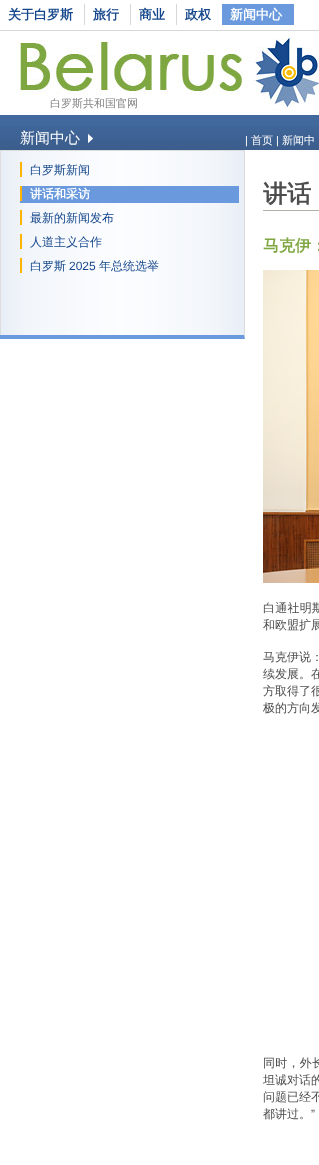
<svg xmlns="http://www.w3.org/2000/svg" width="319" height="1165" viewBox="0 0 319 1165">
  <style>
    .t1 { font: bold 13px WenQuanYi Zen Hei; fill: #15478c; }
    .t2 { font: bold 13px WenQuanYi Zen Hei; fill: #fff; }
    .t3 { font: 500 11px WenQuanYi Zen Hei; fill: #818181; }
    .t4 { font: 500 15px WenQuanYi Zen Hei; fill: #fff; }
    .t5 { font: 500 12px WenQuanYi Zen Hei; fill: #15478c; }
    .t6 { font: bold 12px WenQuanYi Zen Hei; fill: #fff; }
    .t7 { font: 12px Liberation Sans; fill: #15478c; }
    .t8 { font: 11px Liberation Sans; fill: #fff; }
    .t9 { font: 500 11px WenQuanYi Zen Hei; fill: #fff; }
    .t10 { font: bold 24px WenQuanYi Zen Hei; fill: #4d4d4d; }
    .t11 { font: bold 16px WenQuanYi Zen Hei; fill: #7ea741; }
    .t12 { font: 500 12px WenQuanYi Zen Hei; letter-spacing: 0.25px; fill: #4d4d4d; }
    .t13 { font: 500 12px WenQuanYi Zen Hei; fill: #4d4d4d; }
    .t14 { font: 12px Liberation Sans; fill: #4d4d4d; }
  </style>
  <rect width="100%" height="100%" fill="#fff"/>
  <rect x="0" y="30" width="319" height="1" fill="#d7d7d7"/>
  <text x="8" y="19" class="t1">关于白罗斯</text>
  <text x="93" y="19" class="t1">旅行</text>
  <rect x="84" y="4" width="1" height="21" fill="#d7d7d7"/>
  <text x="139" y="19" class="t1">商业</text>
  <rect x="130" y="4" width="1" height="21" fill="#d7d7d7"/>
  <text x="185" y="19" class="t1">政权</text>
  <rect x="176" y="4" width="1" height="21" fill="#d7d7d7"/>
  <rect x="222" y="4" width="72" height="21" fill="#6a9add"/>
  <text x="230" y="19" class="t2">新闻中心</text>
  <image x="16" y="33" width="303" height="78" href="images/1.png"/>
  <text x="50" y="107" class="t3">白罗斯共和国官网</text>
  <rect x="0" y="115" width="319" height="11" fill="#42699e"/>
  <image x="0" y="126" width="245" height="24" href="images/2.png"/>
  <text x="20" y="143" class="t4">新闻中心</text>
  <image x="88" y="133" width="6" height="10" href="images/3.png"/>
  <image x="0" y="151" width="244" height="184" href="images/4.png"/>
  <rect x="0" y="150" width="245" height="1" fill="#dcdcdc"/>
  <path d="M245 150V339L244 335V151Z" fill="#dcdcdc"/>
  <path d="M245 339H0V335H244Z" fill="#6a9add"/>
  <rect x="20" y="162" width="2" height="15" fill="#ffb400"/>
  <text x="30" y="174" class="t5">白罗斯新闻</text>
  <rect x="20" y="186" width="219" height="17" fill="#6a9add"/>
  <rect x="20" y="186" width="2" height="15" fill="#ffb400"/>
  <text x="30" y="198" class="t6">讲话和采访</text>
  <rect x="20" y="210" width="2" height="15" fill="#ffb400"/>
  <text x="30" y="222" class="t5">最新的新闻发布</text>
  <rect x="20" y="234" width="2" height="15" fill="#ffb400"/>
  <text x="30" y="246" class="t5">人道主义合作</text>
  <rect x="20" y="258" width="2" height="15" fill="#ffb400"/>
  <text x="30" y="270" class="t5">白罗斯</text>
  <text x="69" y="270" class="t7">2025</text>
  <text x="99" y="270" class="t5">年总统选举</text>
  <image x="245" y="126" width="74" height="24" href="images/5.png"/>
  <text x="245" y="144" class="t8">|</text>
  <text x="251" y="144" class="t9">首页</text>
  <text x="276" y="144" class="t8">|</text>
  <text x="282" y="144" class="t9">新闻中</text>
  <rect x="263" y="210" width="56" height="1" fill="#b0b0a6"/>
  <text x="263" y="202" class="t10">讲话</text>
  <text x="263" y="251" class="t11">马克伊：</text>
  <image x="263" y="270" width="56" height="313" href="images/6.png"/>
  <text x="263" y="612" class="t12">白通社明斯</text>
  <text x="263" y="629" class="t13">和欧盟扩展</text>
  <text x="263" y="661" class="t13">马克伊说：</text>
  <text x="263" y="678" class="t13">续发展。在</text>
  <text x="263" y="695" class="t13">方取得了很</text>
  <text x="263" y="712" class="t13">极的方向发</text>
  <text x="263" y="1067" class="t12">同时，外长</text>
  <text x="263" y="1084" class="t13">坦诚对话的</text>
  <text x="263" y="1101" class="t13">问题已经不</text>
  <text x="263" y="1118" class="t13">都讲过。</text>
  <text x="311" y="1118" class="t14">”</text>
</svg>
